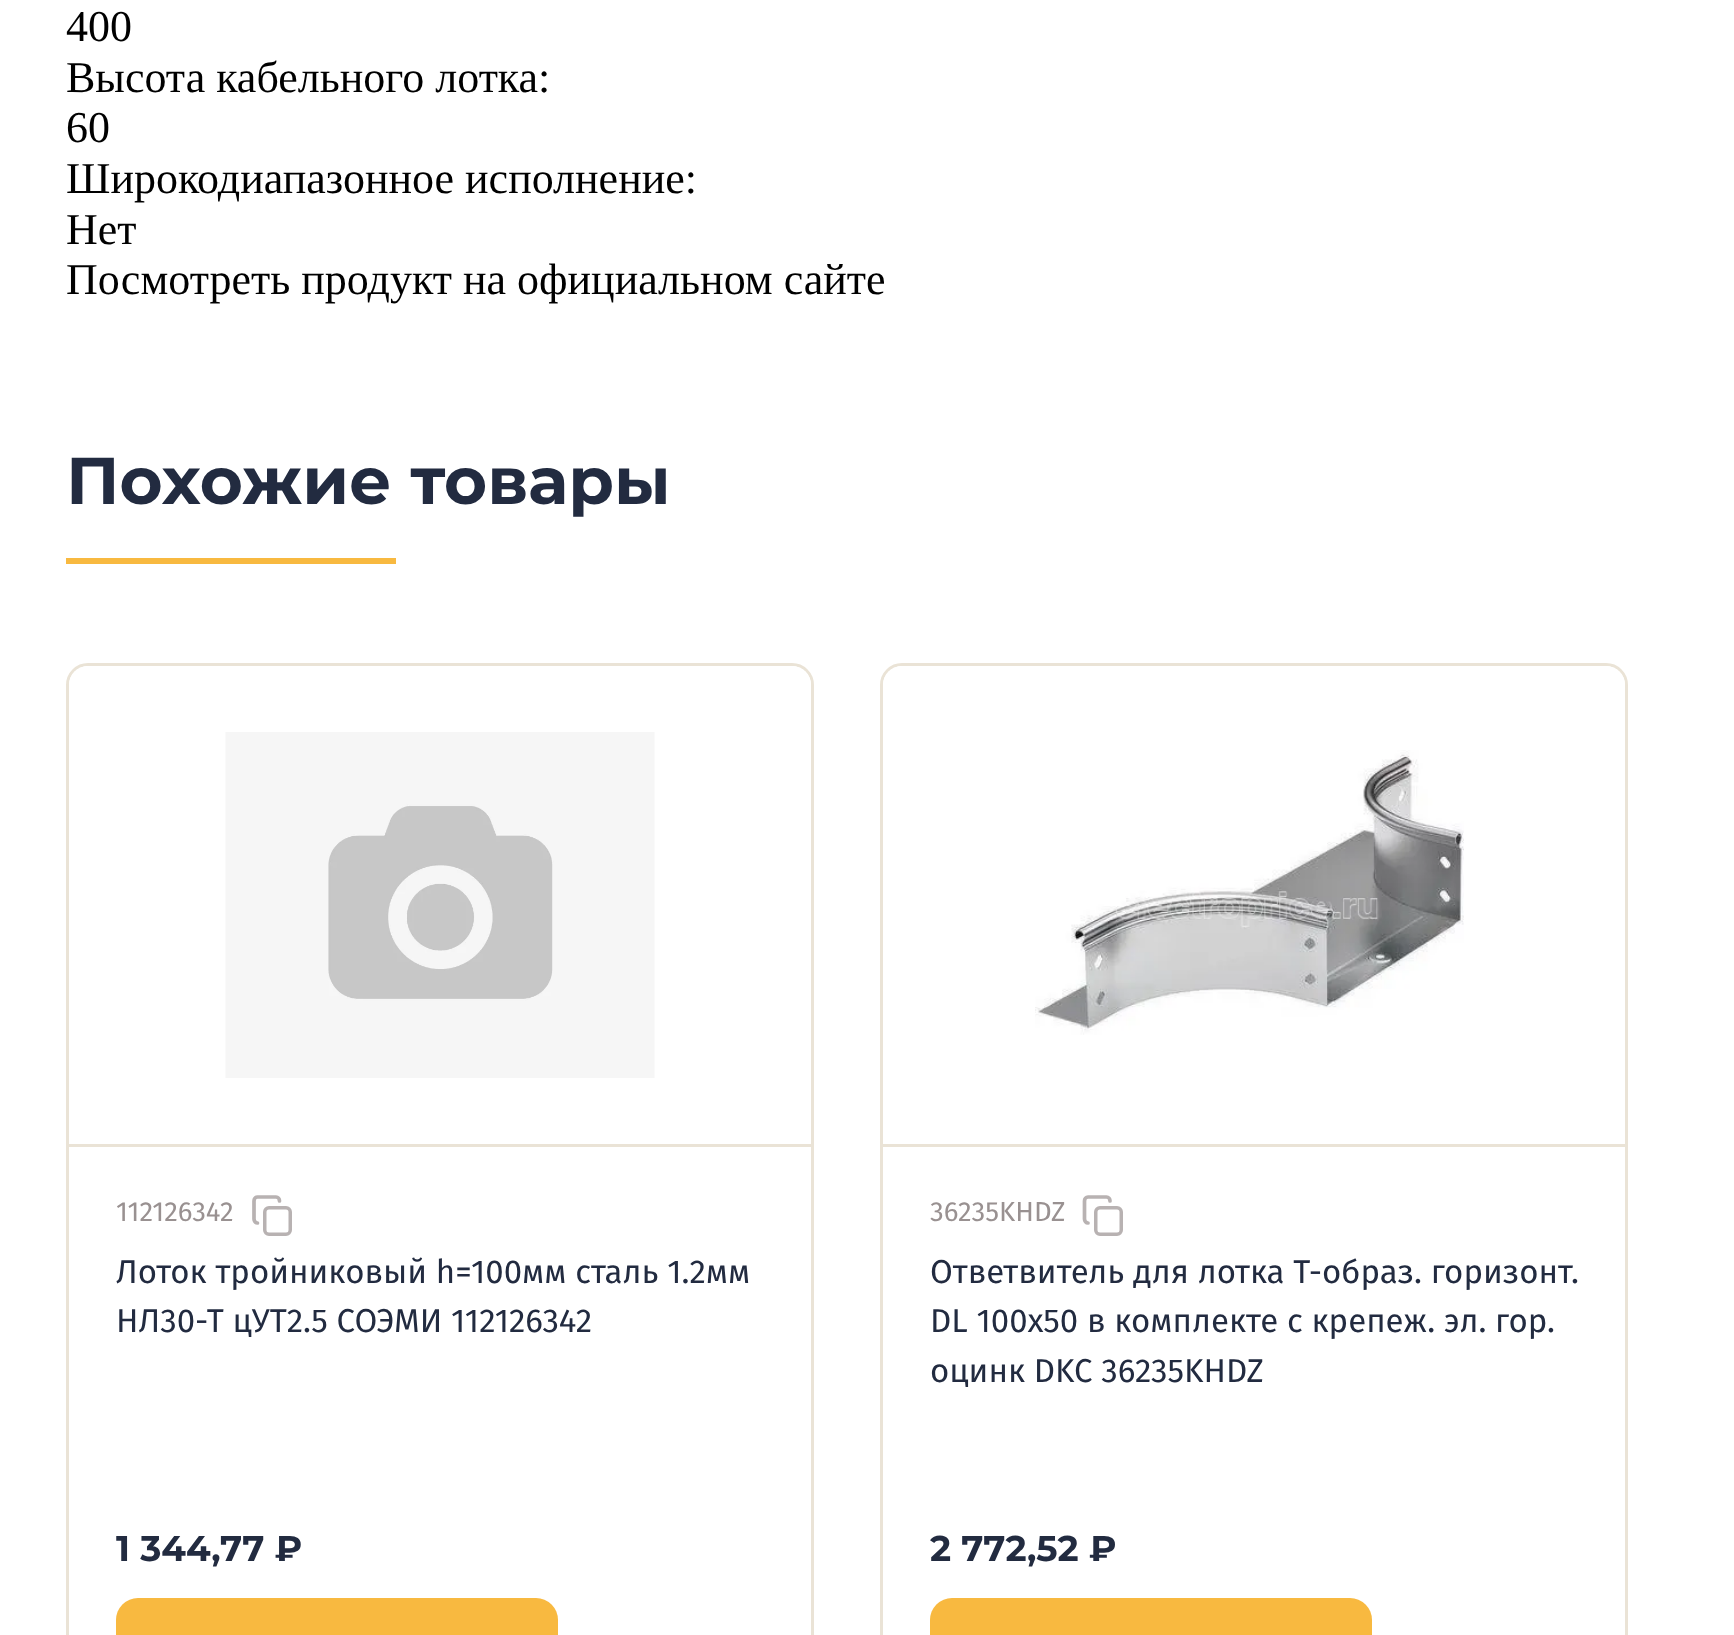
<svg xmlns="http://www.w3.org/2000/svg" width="1734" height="1635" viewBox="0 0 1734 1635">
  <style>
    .t1 { font: 44px Liberation Serif; fill: #000; }
    .t2 { font: bold 66px Montserrat; fill: #222b40; }
    .t3 { font: 27.5px Fira Sans; fill: #999191; }
    .t4 { font: 33px Fira Sans; fill: #222b40; }
    .t5 { font: bold 35.75px Montserrat; fill: #222b40; }
  </style>
  <rect width="100%" height="100%" fill="#fff"/>
  <text x="66" y="41" class="t1">400</text>
  <text x="66" y="92" class="t1">Высота кабельного лотка:</text>
  <text x="66" y="142" class="t1">60</text>
  <text x="66" y="193" class="t1">Широкодиапазонное исполнение:</text>
  <text x="66" y="244" class="t1">Нет</text>
  <text x="66" y="294" class="t1">Посмотреть продукт на официальном сайте</text>
  <text x="66" y="504" class="t2">Похожие товары</text>
  <rect x="66" y="558" width="330" height="6" fill="#f8b940"/>
  <rect x="67.5" y="664.5" width="745" height="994" rx="20.5" fill="none" stroke="#eae3d6" stroke-width="3"/>
  <path d="M88 666H792C802.5 666 811 674.5 811 685V1147H69V685C69 674.5 77.5 666 88 666Z" fill="#fff"/>
  <rect x="69" y="1144" width="742" height="3" fill="#eae3d6"/>
  <image x="225" y="732" width="430" height="346" href="images/1.png"/>
  <text x="116" y="1221" class="t3">112126342</text>
  <rect x="264.75" y="1207.75" width="25.5" height="26.5" rx="4.25" fill="none" stroke="#b8b2b2" stroke-width="3.5"/>
  <path d="M257.5 1223C255.5 1223 254 1221 254 1219V1201C254 1199 255.5 1197 257.5 1197H276C278 1197 279.5 1199 279.5 1201" fill="none" stroke="#b8b2b2" stroke-width="3.7" stroke-linecap="round" stroke-linejoin="round"/>
  <text x="116" y="1283" class="t4">Лоток тройниковый h=100мм сталь 1.2мм</text>
  <text x="116" y="1332" class="t4">НЛ30-Т цУТ2.5 СОЭМИ 112126342</text>
  <text x="116" y="1561" class="t5">1 344,77 ₽</text>
  <rect x="116" y="1598" width="442" height="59" rx="22" fill="#f8b940"/>
  <rect x="881.5" y="664.5" width="745" height="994" rx="20.5" fill="none" stroke="#eae3d6" stroke-width="3"/>
  <path d="M902 666H1606C1616.5 666 1625 674.5 1625 685V1147H883V685C883 674.5 891.5 666 902 666Z" fill="#fff"/>
  <rect x="883" y="1144" width="742" height="3" fill="#eae3d6"/>
  <image x="1035" y="750" width="429" height="285" href="images/2.png"/>
  <text x="930" y="1221" class="t3">36235KHDZ</text>
  <rect x="1095.75" y="1207.75" width="25.5" height="26.5" rx="4.25" fill="none" stroke="#b8b2b2" stroke-width="3.5"/>
  <path d="M1088 1223C1086 1223 1084.5 1221 1084.5 1219V1201C1084.5 1199 1086 1197 1088 1197H1106.5C1108.5 1197 1110 1199 1110 1201" fill="none" stroke="#b8b2b2" stroke-width="3.7" stroke-linecap="round" stroke-linejoin="round"/>
  <text x="930" y="1283" class="t4">Ответвитель для лотка Т-образ. горизонт.</text>
  <text x="930" y="1332" class="t4">DL 100х50 в комплекте с крепеж. эл. гор.</text>
  <text x="930" y="1382" class="t4">оцинк DKC 36235KHDZ</text>
  <text x="930" y="1561" class="t5">2 772,52 ₽</text>
  <rect x="930" y="1598" width="442" height="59" rx="22" fill="#f8b940"/>
</svg>
